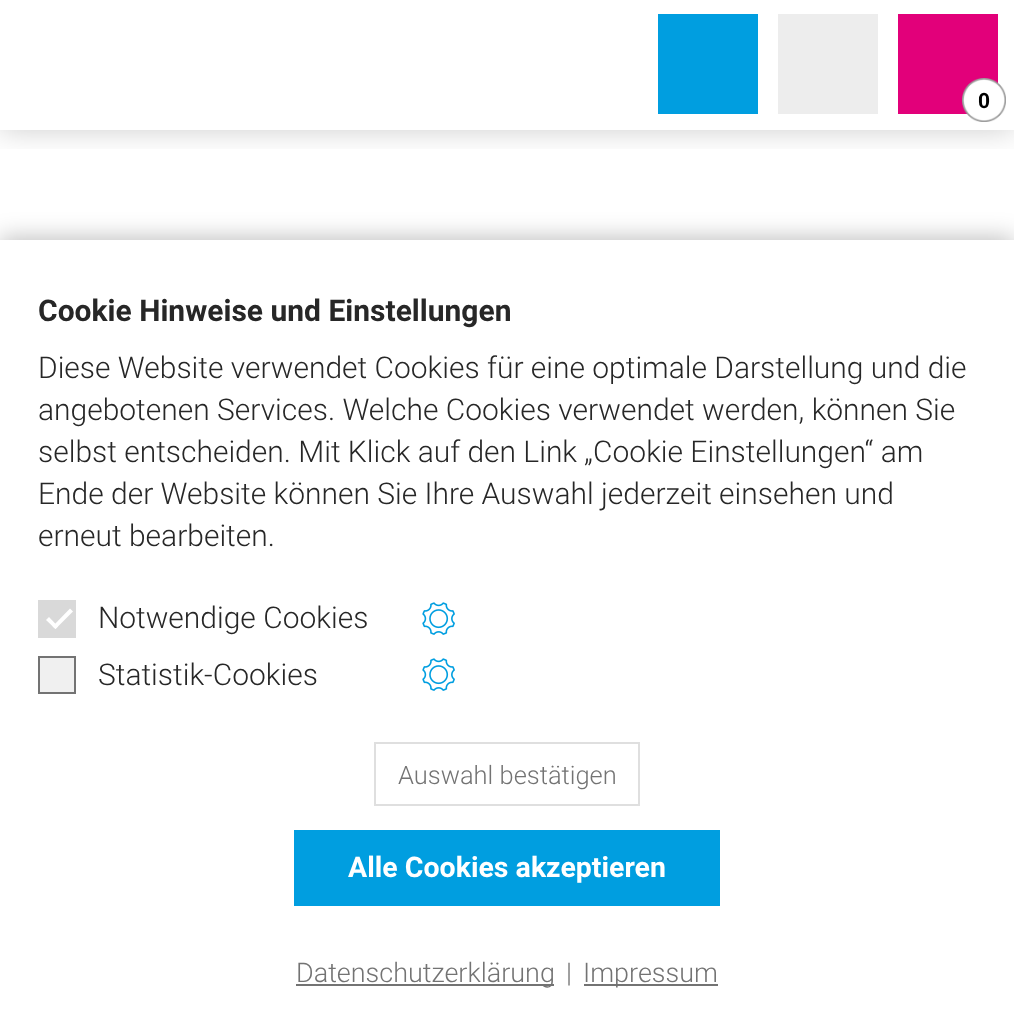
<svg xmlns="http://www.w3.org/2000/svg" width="1014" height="1031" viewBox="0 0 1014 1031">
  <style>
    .t1 { font: bold 21px Roboto; fill: #000; }
    .t2 { font: bold 30px Roboto; fill: #272727; }
    .t3 { font: 300 30px Roboto; fill: #272727; }
    .t4 { font: 300 25.5px Roboto; fill: #737373; }
    .t5 { font: bold 28.5px Roboto; fill: #fff; }
    .t6 { font: 300 27px Roboto; fill: #737373; }
  </style>
  <defs>
    <clipPath id="clip1"><rect x="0" y="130" width="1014" height="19"/></clipPath>
  </defs>
  <rect width="100%" height="100%" fill="#fff"/>
  <g clip-path="url(#clip1)">
    <rect x="0" y="0" width="1014" height="130" fill="#00000033" filter="blur(15px)"/>
  </g>
  <rect x="658" y="14" width="100" height="100" fill="#009ee0"/>
  <rect x="778" y="14" width="100" height="100" fill="#ededed"/>
  <rect x="898" y="14" width="100" height="100" fill="#e2007a"/>
  <image x="962" y="78" width="44" height="44" href="images/1.png"/>
  <text x="978" y="108" class="t1">0</text>
  <rect x="0" y="238" width="1014" height="792" fill="#00000042" filter="blur(12px)"/>
  <rect x="0" y="240" width="1014" height="791" fill="#fff"/>
  <text x="38" y="321" class="t2">Cookie Hinweise und Einstellungen</text>
  <text x="38" y="378" class="t3">Diese Website verwendet Cookies für eine optimale Darstellung und die</text>
  <text x="38" y="420" class="t3">angebotenen Services. Welche Cookies verwendet werden, können Sie</text>
  <text x="38" y="462" class="t3">selbst entscheiden. Mit Klick auf den Link „Cookie Einstellungen“ am</text>
  <text x="38" y="504" class="t3">Ende der Website können Sie Ihre Auswahl jederzeit einsehen und</text>
  <text x="38" y="546" class="t3">erneut bearbeiten.</text>
  <rect x="38" y="600" width="38" height="38" fill="#d9d9d9"/>
  <path d="M70 608.5L73 611.5L55.5 629L52.5 626.5Z" fill="#fff"/>
  <path d="M49 617L58 626.5L55.5 629L46 620Z" fill="#fff"/>
  <text x="98" y="628" class="t3">Notwendige Cookies</text>
  <image x="422" y="602" width="33" height="33" href="images/2.png"/>
  <rect x="39" y="657" width="36" height="36" fill="#f0f0f0" stroke="#737373" stroke-width="2"/>
  <text x="98" y="685" class="t3">Statistik-Cookies</text>
  <image x="422" y="658" width="33" height="33" href="images/2.png"/>
  <rect x="375" y="743" width="264" height="62" fill="none" stroke="#dfdfdf" stroke-width="2"/>
  <text x="398" y="784" class="t4">Auswahl bestätigen</text>
  <rect x="294" y="830" width="426" height="76" fill="#009ee0"/>
  <text x="348" y="877" class="t5">Alle Cookies akzeptieren</text>
  <rect x="296" y="984" width="258" height="2" fill="#737373"/>
  <text x="296" y="982" class="t6">Datenschutzerklärung</text>
  <text x="566" y="982" class="t6">|</text>
  <rect x="584" y="984" width="134" height="2" fill="#737373"/>
  <text x="583" y="982" class="t6">Impressum</text>
</svg>
